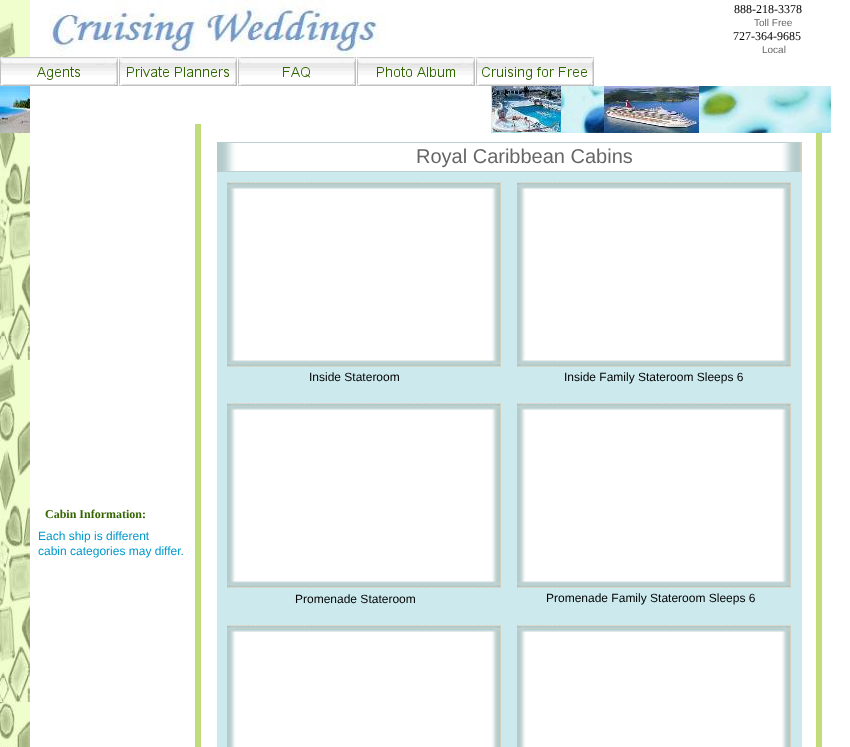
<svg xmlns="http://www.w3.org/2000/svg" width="850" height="747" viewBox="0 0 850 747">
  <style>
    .t1 { font: 12px Liberation Serif; fill: #000; }
    .t2 { font: 10px Liberation Sans; fill: #666; }
    .t3 { font: 20px Liberation Sans; fill: #666; }
    .t4 { font: 12px Liberation Sans; fill: #000; }
    .t5 { font: bold 12px Liberation Serif; fill: #360; }
    .t6 { font: 12px Liberation Sans; fill: #09c; }
  </style>
  <rect width="100%" height="100%" fill="#fff"/>
  <image x="0" y="0" width="30" height="360" href="images/1.png"/>
  <image x="49" y="0" width="337" height="56" href="images/2.png"/>
  <text x="734" y="13" class="t1">888-218-3378</text>
  <text x="754" y="26" class="t2">Toll Free</text>
  <text x="733" y="40" class="t1">727-364-9685</text>
  <text x="762" y="53" class="t2">Local</text>
  <image x="0" y="57" width="118" height="29" href="images/3.png"/>
  <image x="119" y="57" width="118" height="29" href="images/4.png"/>
  <image x="238" y="57" width="118" height="29" href="images/5.png"/>
  <image x="357" y="57" width="118" height="29" href="images/6.png"/>
  <image x="476" y="57" width="118" height="29" href="images/7.png"/>
  <image x="0" y="86" width="30" height="47" href="images/8.png"/>
  <image x="491" y="86" width="340" height="47" href="images/9.png"/>
  <image x="492" y="86" width="69" height="46" href="images/10.png"/>
  <image x="604" y="86" width="95" height="47" href="images/11.png"/>
  <rect x="195" y="124" width="6" height="623" fill="#c0dc7b"/>
  <image x="217" y="142" width="585" height="30" href="images/12.png"/>
  <rect x="816" y="133" width="6" height="614" fill="#c0dc7b"/>
  <text x="416" y="163" class="t3">Royal Caribbean Cabins</text>
  <rect x="217" y="172" width="585" height="575" fill="#cceaee"/>
  <image x="227" y="182" width="274" height="185" href="images/13.png"/>
  <image x="517" y="182" width="274" height="185" href="images/14.png"/>
  <image x="0" y="360" width="30" height="342" href="images/15.png"/>
  <text x="309" y="381" class="t4">Inside Stateroom</text>
  <text x="564" y="381" class="t4">Inside Family Stateroom Sleeps 6</text>
  <text x="45" y="518" class="t5">Cabin Information:</text>
  <image x="227" y="403" width="274" height="185" href="images/13.png"/>
  <image x="517" y="403" width="274" height="185" href="images/14.png"/>
  <text x="38" y="540" class="t6">Each ship is different</text>
  <text x="38" y="555" class="t6">cabin categories may differ.</text>
  <text x="295" y="603" class="t4">Promenade Stateroom</text>
  <text x="546" y="602" class="t4">Promenade Family Stateroom Sleeps 6</text>
  <image x="0" y="702" width="30" height="45" href="images/16.png"/>
  <image x="227" y="625" width="274" height="122" href="images/17.png"/>
  <image x="517" y="625" width="274" height="122" href="images/18.png"/>
</svg>
